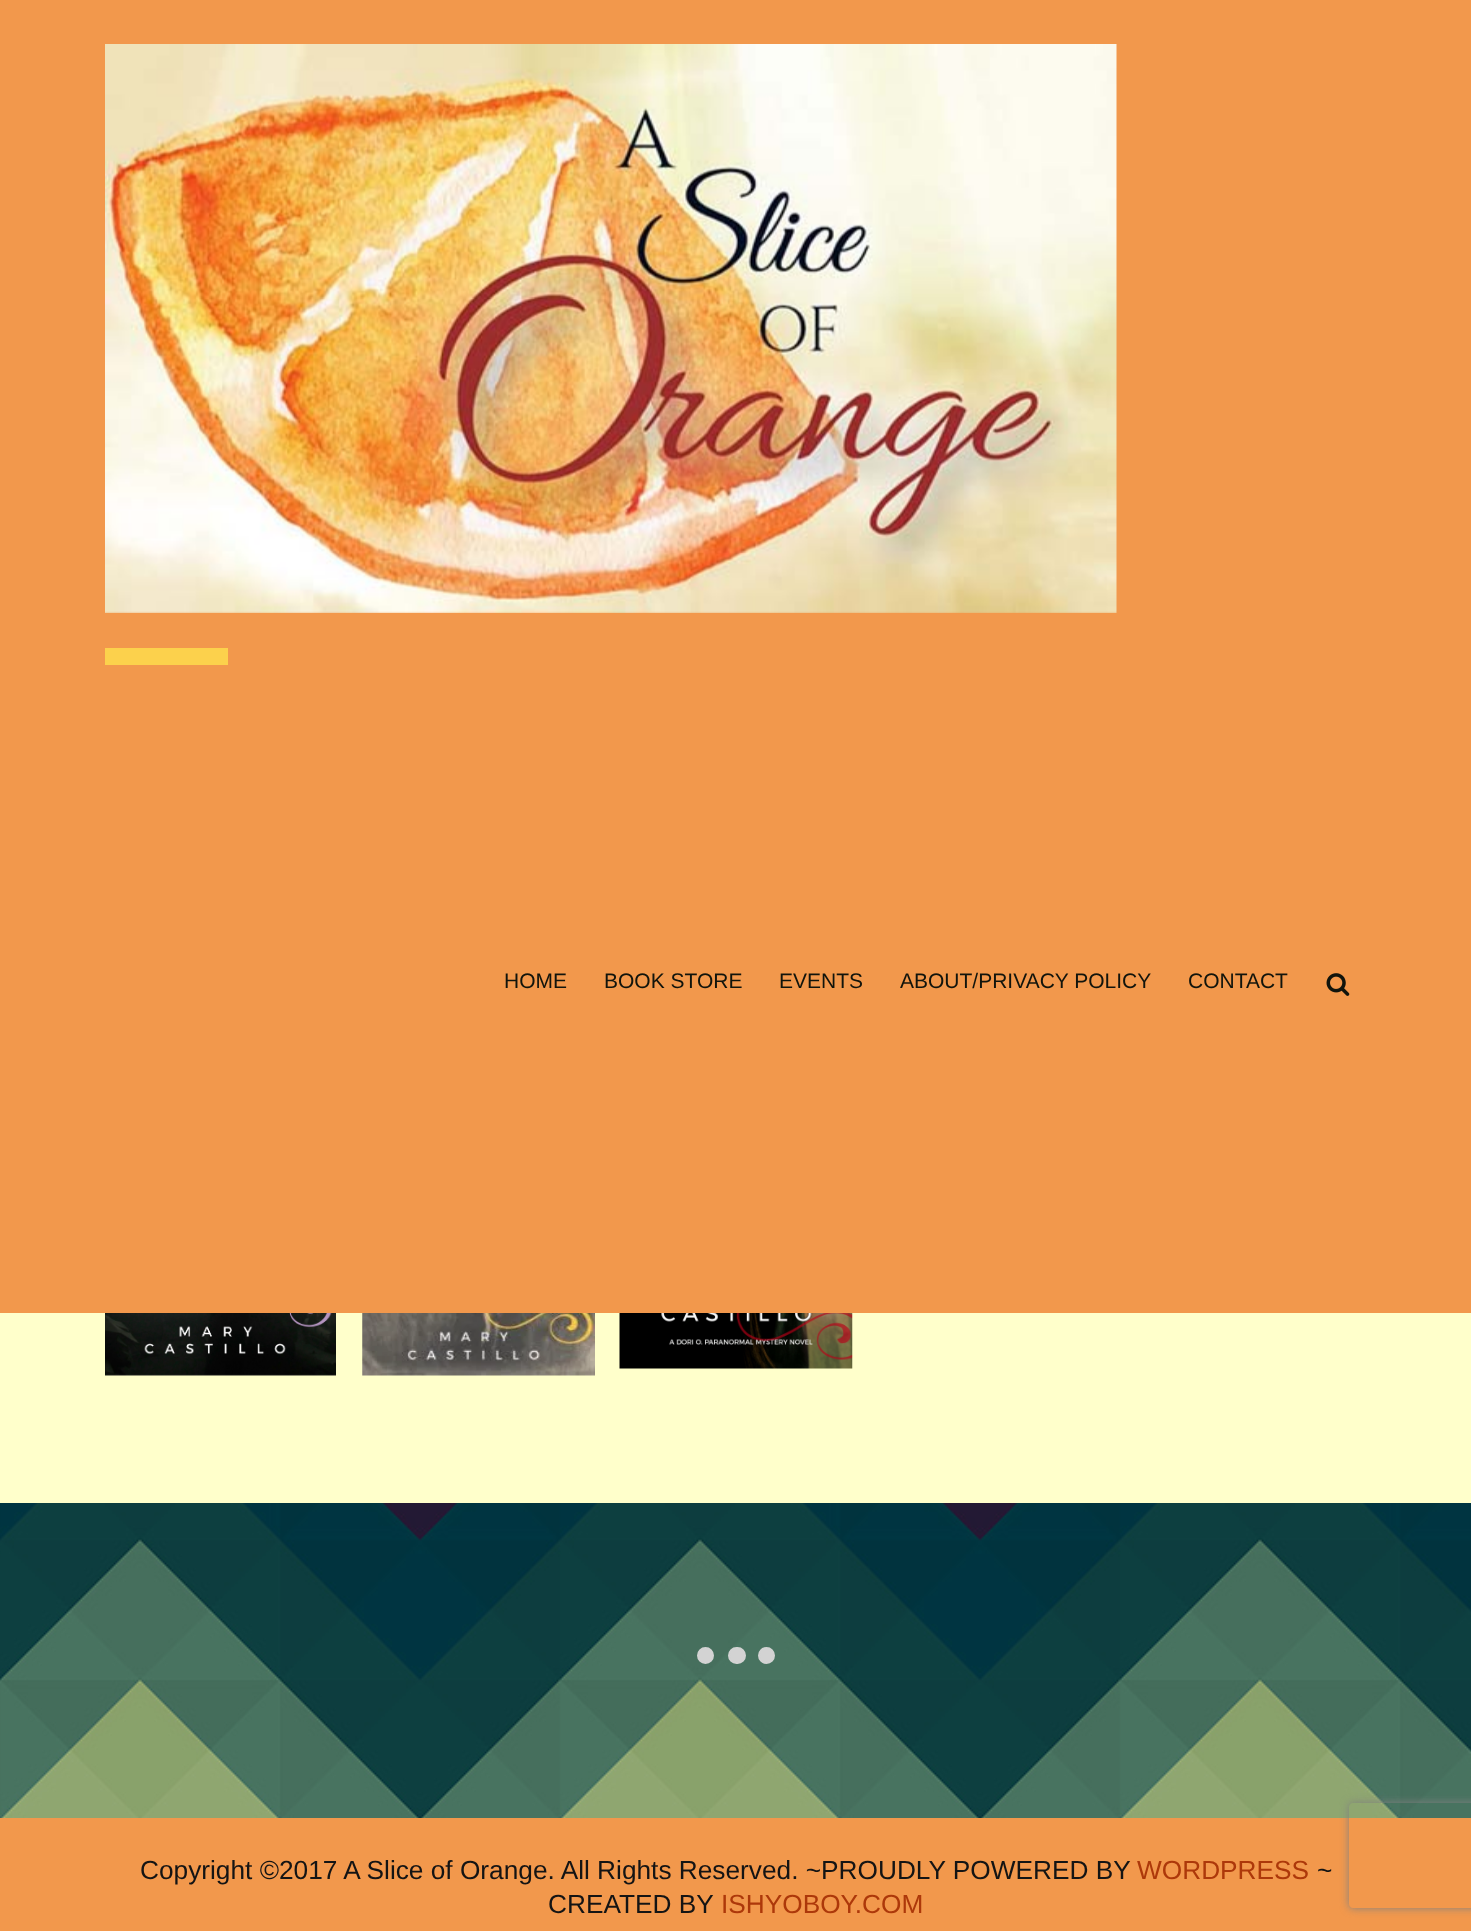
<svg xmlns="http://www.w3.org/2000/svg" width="1471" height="1931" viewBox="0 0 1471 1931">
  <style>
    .t1 { font: 21px Arimo; fill: #11140c; }
    .t2 { font: 26.25px Arimo; fill: #141414; }
    .t3 { font: 26.25px Arimo; fill: #ad380a; }
  </style>
  <defs>
    <clipPath id="clip1"><path d="M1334 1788H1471V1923H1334ZM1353 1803H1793C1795 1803 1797 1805 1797 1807V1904C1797 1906 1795 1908 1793 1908H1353C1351 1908 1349 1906 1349 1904V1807C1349 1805 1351 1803 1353 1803Z" clip-rule="evenodd"/></clipPath>
  </defs>
  <rect width="100%" height="100%" fill="#fff"/>
  <image x="0" y="1503" width="1471" height="315" href="images/1.png"/>
  <rect x="0" y="0" width="1471" height="1313" fill="#f2984c"/>
  <image x="105" y="44" width="1012" height="569" href="images/2.png"/>
  <rect x="105" y="648" width="123" height="17" fill="#fcd14c"/>
  <text x="504" y="988" class="t1">HOME</text>
  <text x="604" y="988" class="t1">BOOK STORE</text>
  <text x="779" y="988" class="t1">EVENTS</text>
  <text x="900" y="988" class="t1">ABOUT/PRIVACY POLICY</text>
  <text x="1188" y="988" class="t1">CONTACT</text>
  <image x="1326" y="973" width="24" height="23" href="images/3.png"/>
  <rect x="0" y="1313" width="1471" height="190" fill="#ffffcb"/>
  <image x="105" y="1313" width="231" height="63" href="images/4.png"/>
  <image x="362" y="1313" width="233" height="63" href="images/5.png"/>
  <image x="619" y="1313" width="234" height="56" href="images/6.png"/>
  <circle cx="705.5" cy="1655.5" r="7.5" fill="#d3d3d3" stroke="#d3d3d3" stroke-width="2"/>
  <rect x="729" y="1648" width="16" height="15" rx="7.5" fill="#d3d3d3" stroke="#d3d3d3" stroke-width="2"/>
  <circle cx="766.5" cy="1655.5" r="7.5" fill="#d3d3d3" stroke="#d3d3d3" stroke-width="2"/>
  <rect x="0" y="1818" width="1471" height="113" fill="#f2984c"/>
  <text x="140" y="1879" class="t2">Copyright ©2017 A Slice of Orange. All Rights Reserved. ~PROUDLY POWERED BY</text>
  <text x="1137" y="1879" class="t3">WORDPRESS</text>
  <text x="1317" y="1879" class="t2">~</text>
  <text x="548" y="1913" class="t2">CREATED BY</text>
  <text x="721" y="1913" class="t3">ISHYOBOY.COM</text>
  <g clip-path="url(#clip1)">
    <rect x="1349" y="1803" width="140" height="105" rx="4" fill="#808080" filter="blur(4.5px)"/>
  </g>
</svg>
